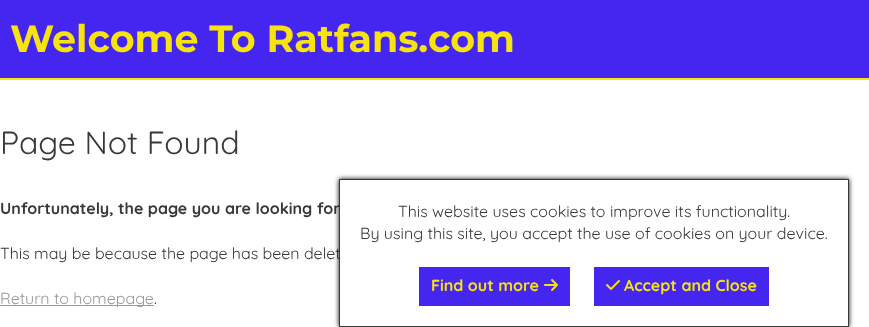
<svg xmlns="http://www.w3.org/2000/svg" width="869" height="327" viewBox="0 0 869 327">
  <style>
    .t1 { font: bold 38px Montserrat; fill: #f7e40f; }
    .t2 { font: 32px Quicksand; fill: #3a3838; }
    .t3 { font: bold 16px Quicksand; fill: #3a3838; }
    .t4 { font: 16px Quicksand; fill: #3a3838; }
    .t5 { font: 16px Quicksand; fill: #999; }
    .t6 { font: bold 16px Quicksand; fill: #f7e40f; }
  </style>
  <rect width="100%" height="100%" fill="#fff"/>
  <rect x="0" y="0" width="869" height="78" fill="#4525f0"/>
  <rect x="0" y="78" width="869" height="2" fill="#f7e40f"/>
  <text x="10" y="52" class="t1">Welcome To Ratfans.com</text>
  <text x="0" y="154" class="t2">Page Not Found</text>
  <text x="0" y="214" class="t3">Unfortunately, the page you are looking for</text>
  <text x="0" y="259" class="t4">This may be because the page has been delet</text>
  <rect x="0" y="305" width="154" height="1" fill="#999"/>
  <text x="0" y="304" class="t5">Return to homepage</text>
  <text x="154" y="304" class="t4">.</text>
  <rect x="339" y="179" width="510" height="148" fill="#000" filter="blur(2.5px)"/>
  <rect x="339.5" y="179.5" width="509" height="147" fill="#fff" stroke="#3a3838"/>
  <text x="398" y="217" class="t4">This website uses cookies to improve its functionality.</text>
  <text x="360" y="239" class="t4">By using this site, you accept the use of cookies on your device.</text>
  <rect x="419" y="267" width="151" height="39" fill="#4525f0"/>
  <text x="431" y="291" class="t6">Find out more</text>
  <image x="544" y="279" width="14" height="12" href="images/1.png"/>
  <rect x="594" y="267" width="175" height="39" fill="#4525f0"/>
  <image x="606" y="280" width="14" height="10" href="images/2.png"/>
  <text x="624" y="291" class="t6">Accept and Close</text>
</svg>
